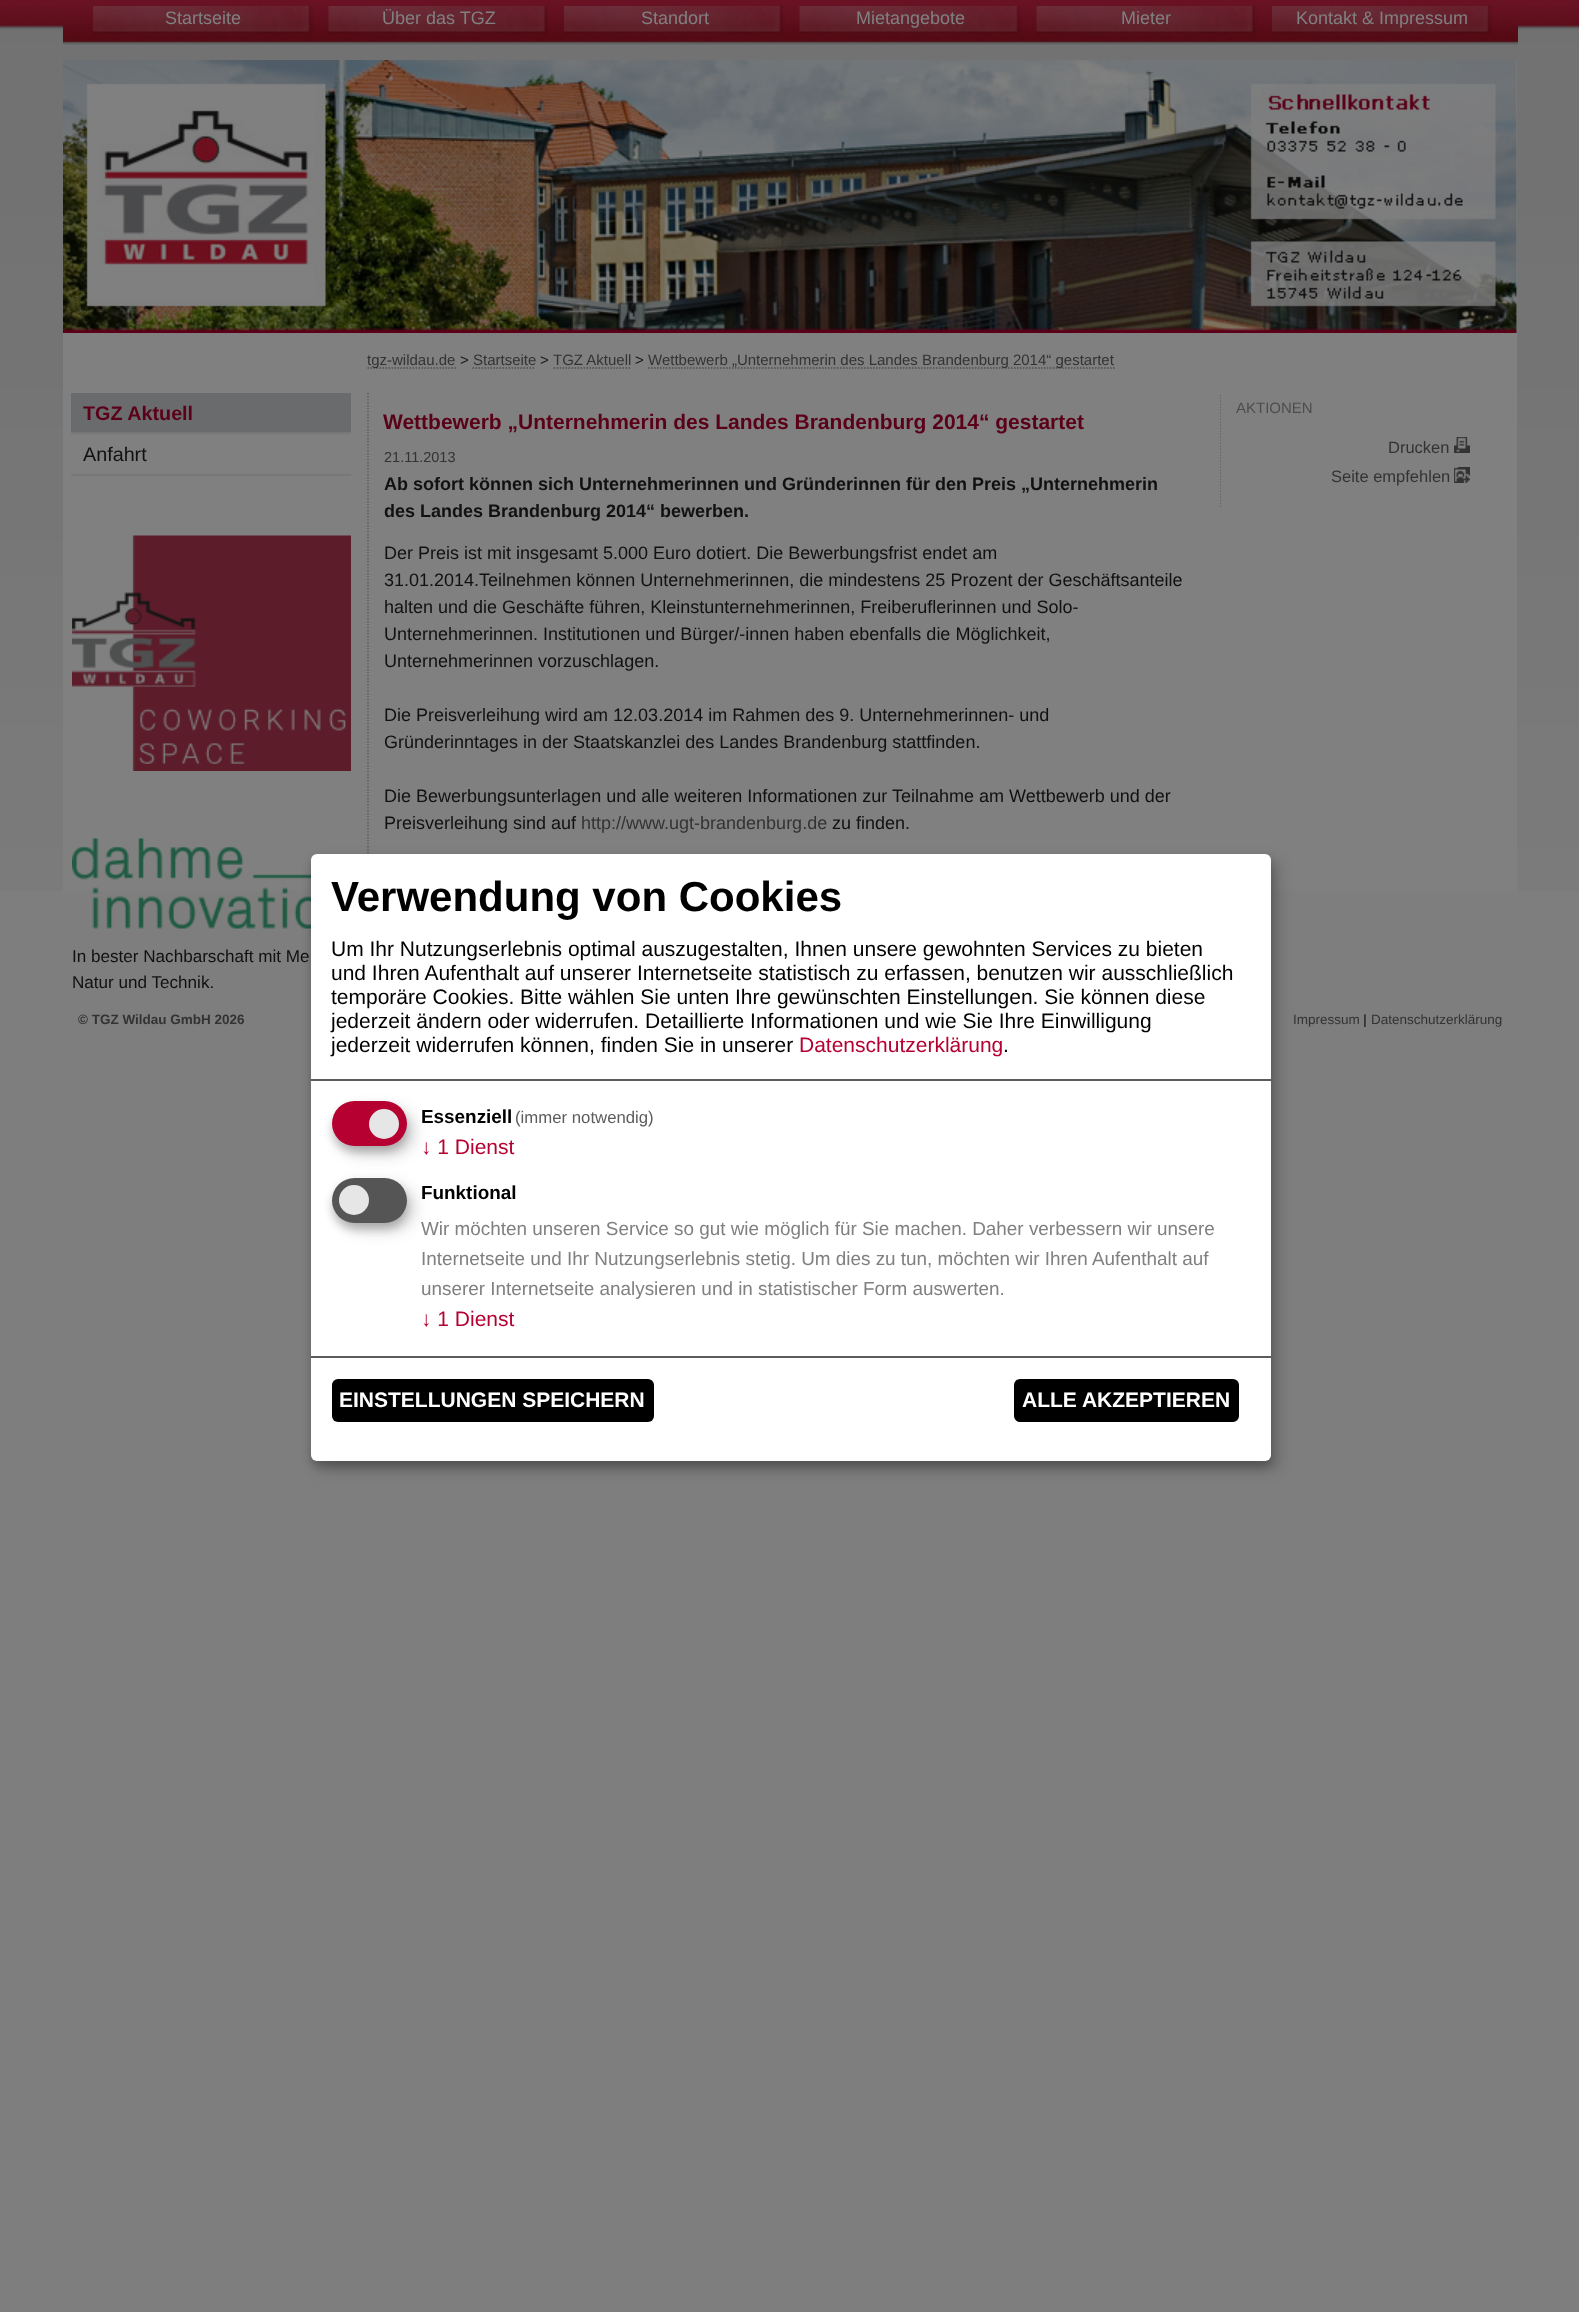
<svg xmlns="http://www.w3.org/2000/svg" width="1579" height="2312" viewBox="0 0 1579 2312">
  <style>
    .t1 { font: 18px Liberation Sans; fill: #808080; }
    .t2 { font: 15px Liberation Sans; fill: #333; }
    .t3 { font: 15px Liberation Sans; fill: #1a1a1a; }
    .t4 { font: bold 19.75px Liberation Sans; fill: #5b0019; }
    .t5 { font: 19.75px Liberation Sans; fill: #111; }
    .t6 { font: 17.1px Liberation Sans; fill: #111; }
    .t7 { font: bold 21px Liberation Sans; fill: #5b0019; }
    .t8 { font: 14.5px Liberation Sans; fill: #333; }
    .t9 { font: bold 18px Liberation Sans; fill: #111; }
    .t10 { font: 18px Liberation Sans; fill: #111; }
    .t11 { font: 18px Liberation Sans; fill: #333; }
    .t12 { font: 15px Liberation Sans; fill: #4d4d4d; }
    .t13 { font: 16.5px Liberation Sans; fill: #333; }
    .t14 { font: bold 13.5px Liberation Sans; fill: #333; }
    .t15 { font: 13.5px Liberation Sans; fill: #333; }
    .t16 { font: bold 42px Liberation Sans; fill: #000; }
    .t17 { font: 21px Liberation Sans; fill: #000; }
    .t18 { font: 21px Liberation Sans; fill: #b50031; }
    .t19 { font: bold 18.9px Liberation Sans; fill: #000; }
    .t20 { font: 16.75px Liberation Sans; fill: #5c5c5c; }
    .t21 { font: 18.9px Liberation Sans; fill: #808080; }
    .t22 { font: bold 21px Liberation Sans; fill: #fff; }
  </style>
  <defs>
    <clipPath id="clip1"><rect x="1220" y="395" width="283" height="127"/></clipPath>
    <clipPath id="clip2"><rect x="78" y="1013" width="288" height="15"/></clipPath>
  </defs>
  <rect width="100%" height="100%" fill="#7e7e7e"/>
  <image x="0" y="0" width="1579" height="891" href="images/1.png"/>
  <image x="63" y="0" width="1455" height="45" href="images/2.png"/>
  <image x="93" y="6" width="221" height="30" href="images/3.png"/>
  <text x="165" y="24" class="t1">Startseite</text>
  <image x="328" y="6" width="221" height="30" href="images/4.png"/>
  <text x="382" y="24" class="t1">Über das TGZ</text>
  <image x="564" y="6" width="221" height="30" href="images/5.png"/>
  <text x="641" y="24" class="t1">Standort</text>
  <image x="799" y="6" width="223" height="30" href="images/6.png"/>
  <text x="856" y="24" class="t1">Mietangebote</text>
  <image x="1036" y="6" width="221" height="30" href="images/7.png"/>
  <text x="1121" y="24" class="t1">Mieter</text>
  <image x="1272" y="6" width="221" height="30" href="images/8.png"/>
  <text x="1296" y="24" class="t1">Kontakt &amp; Impressum</text>
  <rect x="63" y="60" width="1454" height="831" fill="#808080"/>
  <image x="63" y="60" width="1454" height="273" href="images/9.png"/>
  <path d="M367.5 368H456" fill="none" stroke="#4d4d4d" stroke-width="1.5" stroke-dasharray="1.5 1.5"/>
  <text x="367" y="365" class="t2">tgz-wildau.de</text>
  <text x="460" y="365" class="t3">&gt;</text>
  <text x="473" y="365" class="t2">Startseite</text>
  <path d="M472.5 368H535.5" fill="none" stroke="#4d4d4d" stroke-width="1.5" stroke-dasharray="1.5 1.5"/>
  <text x="540" y="365" class="t3">&gt;</text>
  <text x="553" y="365" class="t2">TGZ Aktuell</text>
  <path d="M553.5 368H631.5" fill="none" stroke="#4d4d4d" stroke-width="1.5" stroke-dasharray="1.5 1.5"/>
  <text x="635" y="365" class="t3">&gt;</text>
  <path d="M648 368H1114.5" fill="none" stroke="#4d4d4d" stroke-width="1.5" stroke-dasharray="1.5 1.5"/>
  <text x="648" y="365" class="t2">Wettbewerb „Unternehmerin des Landes Brandenburg 2014“ gestartet</text>
  <rect x="71" y="393" width="280" height="39" fill="#6a6b6d"/>
  <rect x="71" y="432" width="280" height="2" fill="#777"/>
  <text x="83" y="420" class="t4">TGZ Aktuell</text>
  <rect x="71" y="474" width="280" height="2" fill="#777"/>
  <text x="83" y="461" class="t5">Anfahrt</text>
  <image x="72" y="535" width="279" height="236" href="images/10.png"/>
  <image x="72" y="838" width="239" height="91" href="images/11.png"/>
  <text x="72" y="962" class="t6">In bester Nachbarschaft mit Me</text>
  <text x="72" y="988" class="t6">Natur und Technik.</text>
  <path d="M368 393V858" fill="none" stroke="#5e5e5e" stroke-width="1.5" stroke-dasharray="1.5 1.5"/>
  <text x="383" y="429" class="t7">Wettbewerb „Unternehmerin des Landes Brandenburg 2014“ gestartet</text>
  <text x="384" y="462" class="t8">21.11.2013</text>
  <text x="384" y="490" class="t9">Ab sofort können sich Unternehmerinnen und Gründerinnen für den Preis „Unternehmerin</text>
  <text x="384" y="517" class="t9">des Landes Brandenburg 2014“ bewerben.</text>
  <text x="384" y="559" class="t10">Der Preis ist mit insgesamt 5.000 Euro dotiert. Die Bewerbungsfrist endet am</text>
  <text x="384" y="586" class="t10">31.01.2014.Teilnehmen können Unternehmerinnen, die mindestens 25 Prozent der Geschäftsanteile</text>
  <text x="384" y="613" class="t10">halten und die Geschäfte führen, Kleinstunternehmerinnen, Freiberuflerinnen und Solo-</text>
  <text x="384" y="640" class="t10">Unternehmerinnen. Institutionen und Bürger/-innen haben ebenfalls die Möglichkeit,</text>
  <text x="384" y="667" class="t10">Unternehmerinnen vorzuschlagen.</text>
  <text x="384" y="721" class="t10">Die Preisverleihung wird am 12.03.2014 im Rahmen des 9. Unternehmerinnen- und</text>
  <text x="384" y="748" class="t10">Gründerinntages in der Staatskanzlei des Landes Brandenburg stattfinden.</text>
  <text x="384" y="802" class="t10">Die Bewerbungsunterlagen und alle weiteren Informationen zur Teilnahme am Wettbewerb und der</text>
  <text x="384" y="829" class="t10">Preisverleihung sind auf</text>
  <text x="581" y="829" class="t11">http://www.ugt-brandenburg.de</text>
  <text x="832" y="829" class="t10">zu finden.</text>
  <g clip-path="url(#clip1)">
    <path d="M1220 394.5V507" fill="none" stroke="#5e5e5e" stroke-width="1.5" stroke-dasharray="1.5 1.5"/>
  </g>
  <text x="1236" y="413" class="t12">AKTIONEN</text>
  <text x="1388" y="453" class="t13">Drucken</text>
  <rect x="1454" y="437" width="16" height="16" fill="#333"/>
  <image x="1454" y="437" width="16" height="15" href="images/12.png"/>
  <text x="1331" y="482" class="t13">Seite empfehlen</text>
  <rect x="1454" y="467" width="16" height="16" fill="#333"/>
  <image x="1454" y="467" width="16" height="16" href="images/13.png"/>
  <g clip-path="url(#clip2)">
    <text x="78" y="1024" class="t14">© TGZ Wildau GmbH 2026</text>
  </g>
  <text x="1293" y="1024" class="t15">Impressum</text>
  <text x="1363" y="1024" class="t14">|</text>
  <text x="1371" y="1024" class="t15">Datenschutzerklärung</text>
  <rect x="318" y="861" width="960" height="608" rx="6" fill="#00000030" filter="blur(7.5px)"/>
  <rect x="311" y="860" width="960" height="607" rx="6" fill="#00000033" filter="blur(4.5px)"/>
  <rect x="311" y="854" width="960" height="607" rx="6" fill="#fff"/>
  <rect x="311" y="1079" width="960" height="2" fill="#5c5c5c"/>
  <text x="331" y="911" class="t16">Verwendung von Cookies</text>
  <text x="331" y="956" class="t17">Um Ihr Nutzungserlebnis optimal auszugestalten, Ihnen unsere gewohnten Services zu bieten</text>
  <text x="331" y="980" class="t17">und Ihren Aufenthalt auf unserer Internetseite statistisch zu erfassen, benutzen wir ausschließlich</text>
  <text x="331" y="1004" class="t17">temporäre Cookies. Bitte wählen Sie unten Ihre gewünschten Einstellungen. Sie können diese</text>
  <text x="331" y="1028" class="t17">jederzeit ändern oder widerrufen. Detaillierte Informationen und wie Sie Ihre Einwilligung</text>
  <text x="331" y="1052" class="t17">jederzeit widerrufen können, finden Sie in unserer</text>
  <text x="799" y="1052" class="t18">Datenschutzerklärung</text>
  <text x="1003" y="1052" class="t17">.</text>
  <rect x="339" y="1109" width="75" height="45" rx="22.5" fill="#00000030" filter="blur(7.5px)"/>
  <rect x="332" y="1107" width="75" height="45" rx="22.5" fill="#00000033" filter="blur(4.5px)"/>
  <rect x="332" y="1101" width="75" height="45" rx="22.5" fill="#b50031"/>
  <circle cx="384" cy="1124" r="15" fill="#e6e6e6"/>
  <text x="421" y="1123" class="t19">Essenziell</text>
  <text x="515" y="1123" class="t20">(immer notwendig)</text>
  <text x="421" y="1154" class="t18">↓ 1 Dienst</text>
  <rect x="339" y="1185" width="75" height="45" rx="22.5" fill="#00000030" filter="blur(7.5px)"/>
  <rect x="332" y="1184" width="75" height="45" rx="22.5" fill="#00000033" filter="blur(4.5px)"/>
  <rect x="332" y="1178" width="75" height="45" rx="22.5" fill="#555"/>
  <circle cx="354" cy="1200" r="15" fill="#e6e6e6"/>
  <text x="421" y="1199" class="t19">Funktional</text>
  <text x="421" y="1235" class="t21">Wir möchten unseren Service so gut wie möglich für Sie machen. Daher verbessern wir unsere</text>
  <text x="421" y="1265" class="t21">Internetseite und Ihr Nutzungserlebnis stetig. Um dies zu tun, möchten wir Ihren Aufenthalt auf</text>
  <text x="421" y="1295" class="t21">unserer Internetseite analysieren und in statistischer Form auswerten.</text>
  <text x="421" y="1326" class="t18">↓ 1 Dienst</text>
  <rect x="311" y="1356" width="960" height="2" fill="#5c5c5c"/>
  <rect x="332" y="1379" width="322" height="43" rx="6" fill="#000"/>
  <text x="339" y="1407" class="t22">EINSTELLUNGEN SPEICHERN</text>
  <rect x="1014" y="1379" width="225" height="43" rx="6" fill="#000"/>
  <text x="1022" y="1407" class="t22">ALLE AKZEPTIEREN</text>
</svg>
